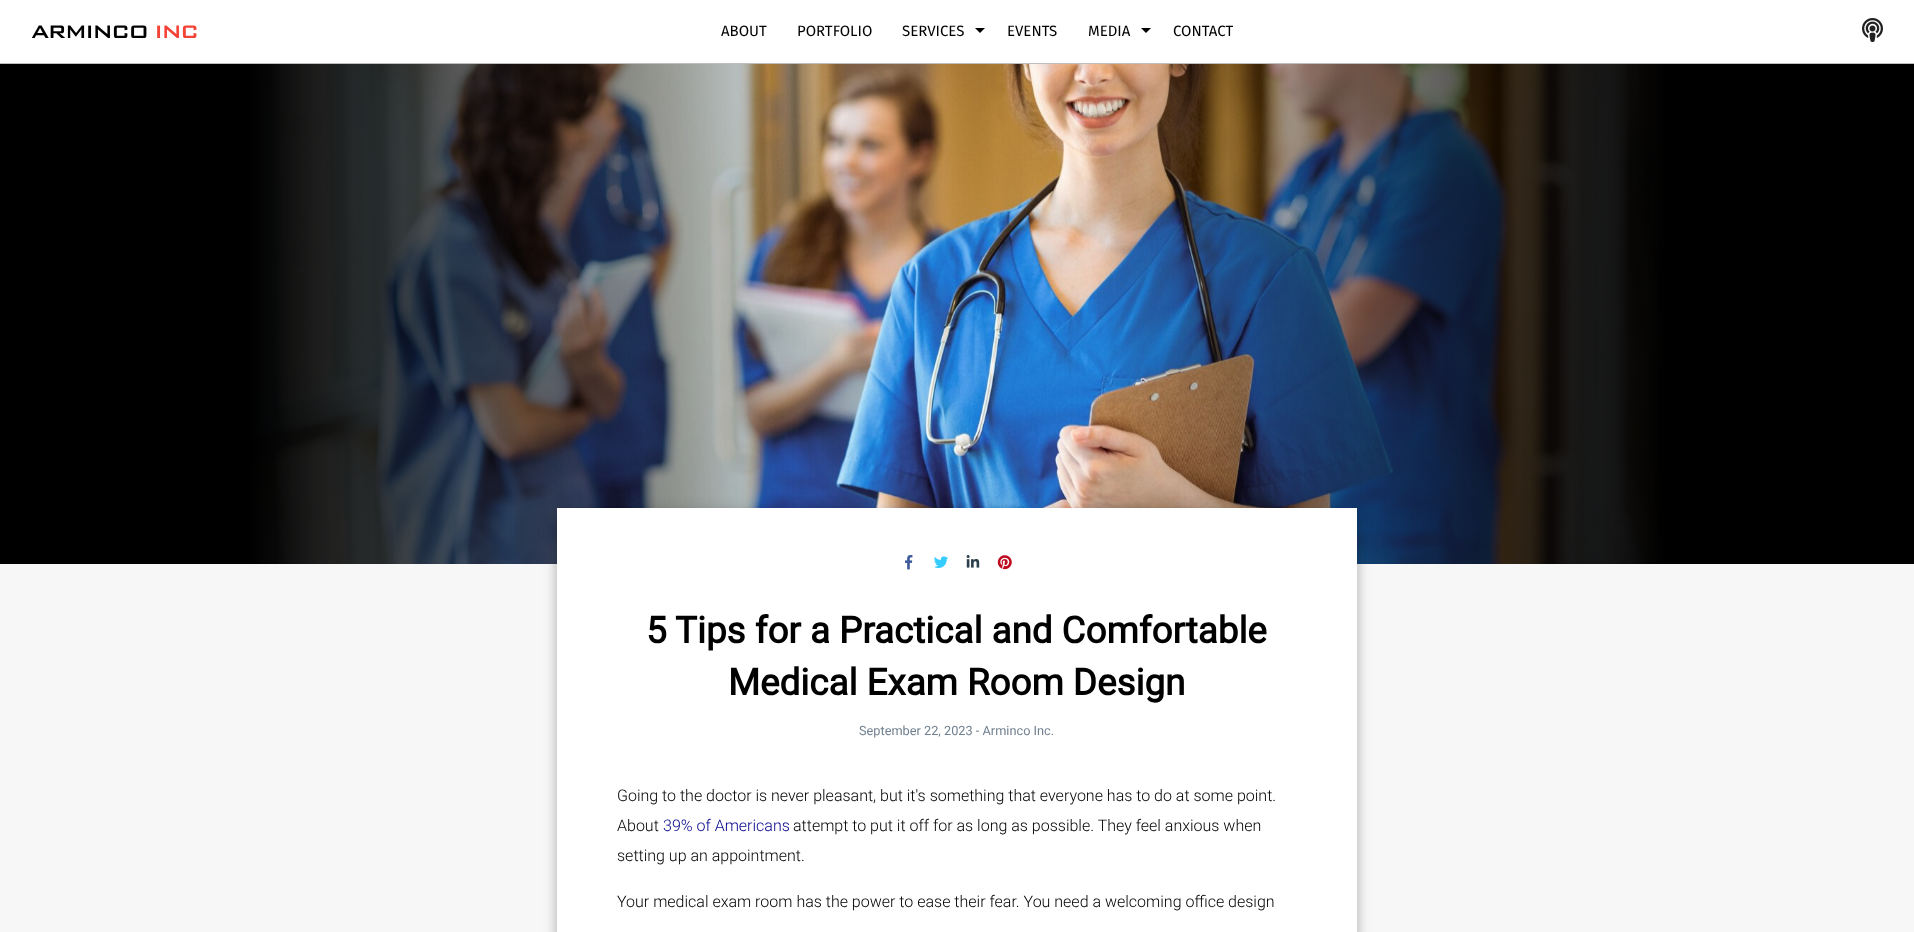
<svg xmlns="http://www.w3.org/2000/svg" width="1914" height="932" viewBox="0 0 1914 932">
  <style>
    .t1 { font: 500 24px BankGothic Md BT; letter-spacing: -2px; fill: #000; }
    .t2 { font: 500 24px BankGothic Md BT; letter-spacing: -2px; fill: #f44336; }
    .t3 { font: 15px Fira Sans; fill: #000; }
    .t4 { font: bold 36.75px Roboto; fill: #000; }
    .t5 { font: 12.75px Roboto; fill: #708090; }
    .t6 { font: 300 16px Roboto; fill: #000; }
    .t7 { font: 300 16px Roboto; fill: #00008b; }
  </style>
  <rect width="100%" height="100%" fill="#f7f7f7"/>
  <rect x="0" y="0" width="1914" height="63" fill="#fff"/>
  <rect x="0" y="63" width="1914" height="1" fill="#bdbdbd"/>
  <text x="31" y="38" class="t1">ARMINCO</text>
  <text x="154" y="38" class="t2">INC</text>
  <text x="721" y="36" class="t3">ABOUT</text>
  <text x="797" y="36" class="t3">PORTFOLIO</text>
  <text x="902" y="36" class="t3">SERVICES</text>
  <path d="M975 28H985L980 33Z" fill="#000"/>
  <text x="1007" y="36" class="t3">EVENTS</text>
  <text x="1088" y="36" class="t3">MEDIA</text>
  <path d="M1141 28H1151L1146 33Z" fill="#000"/>
  <text x="1173" y="36" class="t3">CONTACT</text>
  <image x="1862" y="18" width="21" height="24" href="images/1.png"/>
  <rect x="0" y="64" width="1914" height="500" fill="#000"/>
  <image x="249" y="64" width="1416" height="500" href="images/2.png"/>
  <rect x="555" y="509" width="804" height="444" fill="#0000001f" filter="blur(7px)"/>
  <rect x="556" y="515" width="802" height="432" fill="#00000024" filter="blur(5px)"/>
  <rect x="557" y="508" width="800" height="424" fill="#fff"/>
  <image x="905" y="555" width="8" height="15" href="images/3.png"/>
  <image x="934" y="556" width="14" height="13" href="images/4.png"/>
  <image x="966" y="555" width="14" height="13" href="images/5.png"/>
  <image x="997" y="555" width="15" height="15" href="images/6.png"/>
  <text x="646" y="643" class="t4">5 Tips for a Practical and Comfortable</text>
  <text x="728" y="695" class="t4">Medical Exam Room Design</text>
  <text x="859" y="735" class="t5">September 22, 2023 - Arminco Inc.</text>
  <text x="617" y="801" class="t6">Going to the doctor is never pleasant, but it's something that everyone has to do at some point.</text>
  <text x="617" y="831" class="t6">About</text>
  <text x="663" y="831" class="t7">39% of Americans</text>
  <text x="793" y="831" class="t6">attempt to put it off for as long as possible. They feel anxious when</text>
  <text x="617" y="861" class="t6">setting up an appointment.</text>
  <text x="617" y="907" class="t6">Your medical exam room has the power to ease their fear. You need a welcoming office design</text>
</svg>
